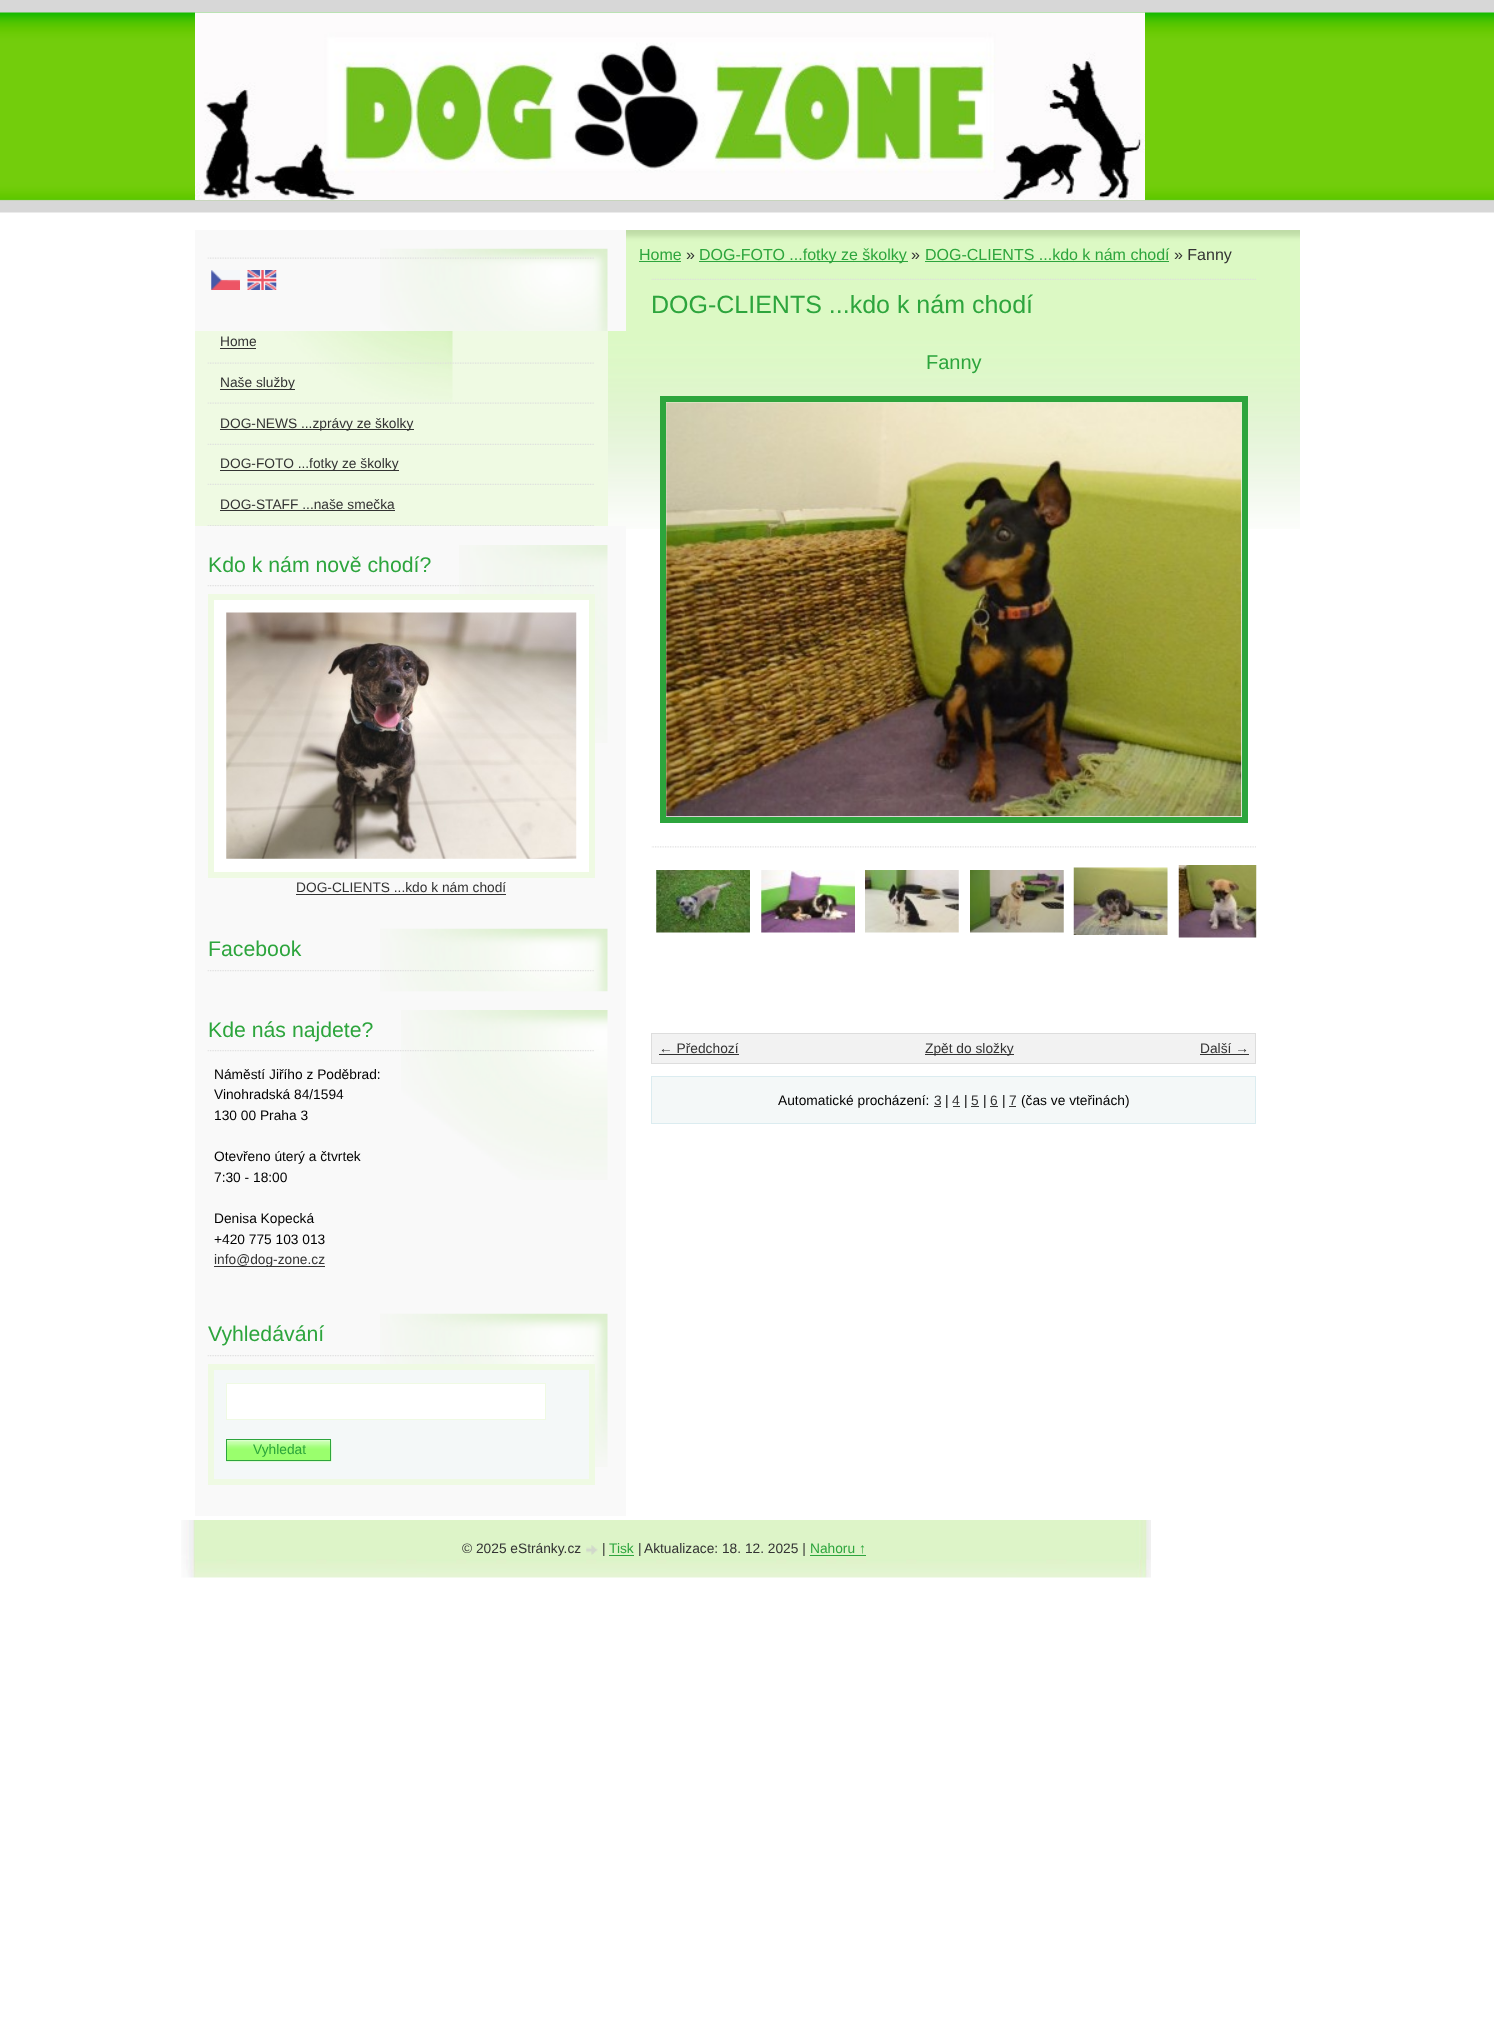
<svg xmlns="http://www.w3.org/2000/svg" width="1494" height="2028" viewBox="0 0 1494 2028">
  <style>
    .t1 { font: 13.75px Liberation Sans; fill: #333; }
    .t2 { font: 21.25px Liberation Sans; fill: #2da53d; }
    .t3 { font: 13.75px Liberation Sans; fill: #000; }
    .t4 { font: 13.75px Liberation Sans; fill: #2da53d; }
    .t5 { font: 16px Liberation Sans; fill: #2da53d; }
    .t6 { font: 16px Liberation Sans; fill: #333; }
    .t7 { font: 25px Liberation Sans; fill: #2da53d; }
    .t8 { font: 20px Liberation Sans; fill: #2da53d; }
  </style>
  <rect width="100%" height="100%" fill="#fff"/>
  <image x="0" y="0" width="1494" height="213" href="images/1.png"/>
  <image x="195" y="12" width="950" height="188" href="images/2.png"/>
  <image x="608" y="230" width="692" height="299" href="images/22.png"/>
  <rect x="195" y="230" width="431" height="101" fill="#f9f9f9"/>
  <image x="380" y="248" width="228" height="83" href="images/3.png"/>
  <image x="207" y="257" width="387" height="2" href="images/4.png"/>
  <image x="211" y="270" width="29" height="20" href="images/5.png"/>
  <image x="247" y="270" width="30" height="20" href="images/6.png"/>
  <rect x="195" y="331" width="413" height="195" fill="#effae3"/>
  <image x="244" y="331" width="209" height="71" href="images/7.png"/>
  <image x="207" y="362" width="387" height="2" href="images/8.png"/>
  <text x="220" y="346" class="t1">Home</text>
  <rect x="220" y="348" width="36" height="1" fill="#333"/>
  <image x="207" y="402" width="387" height="2" href="images/9.png"/>
  <rect x="220" y="389" width="75" height="1" fill="#333"/>
  <text x="220" y="387" class="t1">Naše služby</text>
  <image x="207" y="443" width="387" height="2" href="images/10.png"/>
  <rect x="220" y="429" width="194" height="1" fill="#333"/>
  <text x="220" y="428" class="t1">DOG-NEWS ...zprávy ze školky</text>
  <image x="207" y="483" width="387" height="2" href="images/10.png"/>
  <rect x="220" y="470" width="179" height="1" fill="#333"/>
  <text x="220" y="468" class="t1">DOG-FOTO ...fotky ze školky</text>
  <image x="207" y="525" width="387" height="1" href="images/11.png"/>
  <text x="220" y="509" class="t1">DOG-STAFF ...naše smečka</text>
  <rect x="220" y="510" width="175" height="1" fill="#333"/>
  <rect x="195" y="526" width="431" height="990" fill="#f9f9f9"/>
  <image x="459" y="545" width="149" height="198" href="images/12.png"/>
  <image x="207" y="585" width="387" height="2" href="images/13.png"/>
  <text x="208" y="572" class="t2">Kdo k nám nově chodí?</text>
  <rect x="211" y="597" width="381" height="278" fill="#fff" stroke="#effae3" stroke-width="6"/>
  <image x="226" y="612" width="351" height="247" href="images/14.png"/>
  <text x="296" y="892" class="t1">DOG-CLIENTS ...kdo k nám chodí</text>
  <rect x="296" y="894" width="210" height="1" fill="#333"/>
  <image x="380" y="928" width="228" height="64" href="images/15.png"/>
  <image x="207" y="970" width="387" height="2" href="images/16.png"/>
  <text x="208" y="956" class="t2">Facebook</text>
  <image x="401" y="1010" width="207" height="170" href="images/17.png"/>
  <image x="207" y="1050" width="387" height="2" href="images/18.png"/>
  <text x="208" y="1037" class="t2">Kde nás najdete?</text>
  <text x="214" y="1079" class="t3">Náměstí Jiřího z Poděbrad:</text>
  <text x="214" y="1099" class="t3">Vinohradská 84/1594</text>
  <text x="214" y="1120" class="t3">130 00 Praha 3</text>
  <text x="214" y="1161" class="t3">Otevřeno úterý a čtvrtek</text>
  <text x="214" y="1182" class="t3">7:30 - 18:00</text>
  <text x="214" y="1223" class="t3">Denisa Kopecká</text>
  <text x="214" y="1244" class="t3">+420 775 103 013</text>
  <rect x="214" y="1266" width="111" height="1" fill="#333"/>
  <text x="214" y="1264" class="t1">info@dog-zone.cz</text>
  <image x="380" y="1313" width="228" height="154" href="images/19.png"/>
  <image x="207" y="1355" width="387" height="2" href="images/20.png"/>
  <text x="208" y="1341" class="t2">Vyhledávání</text>
  <rect x="211" y="1367" width="381" height="115" fill="#f4f8f8" stroke="#effae3" stroke-width="6"/>
  <rect x="226.5" y="1383.5" width="319" height="36" fill="#fff" stroke="#effae3"/>
  <image x="226" y="1440" width="106" height="22" href="images/21.png"/>
  <rect x="226.5" y="1439.5" width="104" height="21" fill="none" stroke="#2da53d"/>
  <text x="253" y="1454" class="t4">Vyhledat</text>
  <text x="639" y="260" class="t5">Home</text>
  <rect x="639" y="261" width="42" height="1" fill="#2da53d"/>
  <text x="686" y="260" class="t6">»</text>
  <rect x="699" y="261" width="209" height="1" fill="#2da53d"/>
  <text x="699" y="260" class="t5">DOG-FOTO ...fotky ze školky</text>
  <text x="911" y="260" class="t6">»</text>
  <text x="925" y="260" class="t5">DOG-CLIENTS ...kdo k nám chodí</text>
  <rect x="925" y="261" width="244" height="1" fill="#2da53d"/>
  <text x="1174" y="260" class="t6">» Fanny</text>
  <image x="651" y="278" width="605" height="2" href="images/23.png"/>
  <text x="651" y="313" class="t7">DOG-CLIENTS ...kdo k nám chodí</text>
  <image x="651" y="846" width="605" height="2" href="images/24.png"/>
  <text x="926" y="369" class="t8">Fanny</text>
  <rect x="663" y="399" width="582" height="421" fill="none" stroke="#2da53d" stroke-width="6"/>
  <image x="666" y="402" width="576" height="415" href="images/25.png"/>
  <image x="656" y="870" width="94" height="63" href="images/26.png"/>
  <image x="761" y="870" width="94" height="63" href="images/27.png"/>
  <image x="865" y="870" width="94" height="63" href="images/28.png"/>
  <image x="970" y="870" width="94" height="63" href="images/29.png"/>
  <rect x="1167" y="891" width="1" height="19" fill="#f4f8f8"/>
  <image x="1073" y="867" width="95" height="68" href="images/30.png"/>
  <image x="1178" y="865" width="79" height="73" href="images/31.png"/>
  <rect x="651.5" y="1033.5" width="604" height="30" fill="#f2f2f2" stroke="#ddd"/>
  <text x="659" y="1053" class="t1">← Předchozí</text>
  <rect x="659" y="1054" width="80" height="1" fill="#333"/>
  <rect x="925" y="1054" width="89" height="1" fill="#333"/>
  <text x="925" y="1053" class="t1">Zpět do složky</text>
  <text x="1200" y="1053" class="t1">Další →</text>
  <rect x="1200" y="1054" width="49" height="1" fill="#333"/>
  <rect x="651.5" y="1076.5" width="604" height="47" fill="#f4f8f8" stroke="#dbecf0"/>
  <text x="778" y="1105" class="t3">Automatické procházení:</text>
  <text x="934" y="1105" class="t1">3</text>
  <rect x="934" y="1106" width="7" height="1" fill="#333"/>
  <text x="945" y="1105" class="t3">|</text>
  <text x="952" y="1105" class="t1">4</text>
  <rect x="953" y="1106" width="7" height="1" fill="#333"/>
  <text x="964" y="1105" class="t3">|</text>
  <text x="971" y="1105" class="t1">5</text>
  <rect x="971" y="1106" width="8" height="1" fill="#333"/>
  <text x="983" y="1105" class="t3">|</text>
  <text x="990" y="1105" class="t1">6</text>
  <rect x="990" y="1106" width="8" height="1" fill="#333"/>
  <text x="1002" y="1105" class="t3">|</text>
  <text x="1009" y="1105" class="t1">7</text>
  <rect x="1009" y="1106" width="7" height="1" fill="#333"/>
  <text x="1021" y="1105" class="t3">(čas ve vteřinách)</text>
  <image x="181" y="1520" width="970" height="58" href="images/32.png"/>
  <text x="462" y="1553" class="t1">© 2025 eStránky.cz</text>
  <image x="586" y="1545" width="12" height="10" href="images/33.png"/>
  <text x="602" y="1553" class="t1">|</text>
  <text x="609" y="1553" class="t4">Tisk</text>
  <rect x="609" y="1555" width="25" height="1" fill="#2da53d"/>
  <text x="638" y="1553" class="t1">|</text>
  <text x="644" y="1553" class="t1">Aktualizace: 18. 12. 2025 |</text>
  <text x="810" y="1553" class="t4">Nahoru ↑</text>
  <rect x="810" y="1555" width="56" height="1" fill="#2da53d"/>
</svg>
